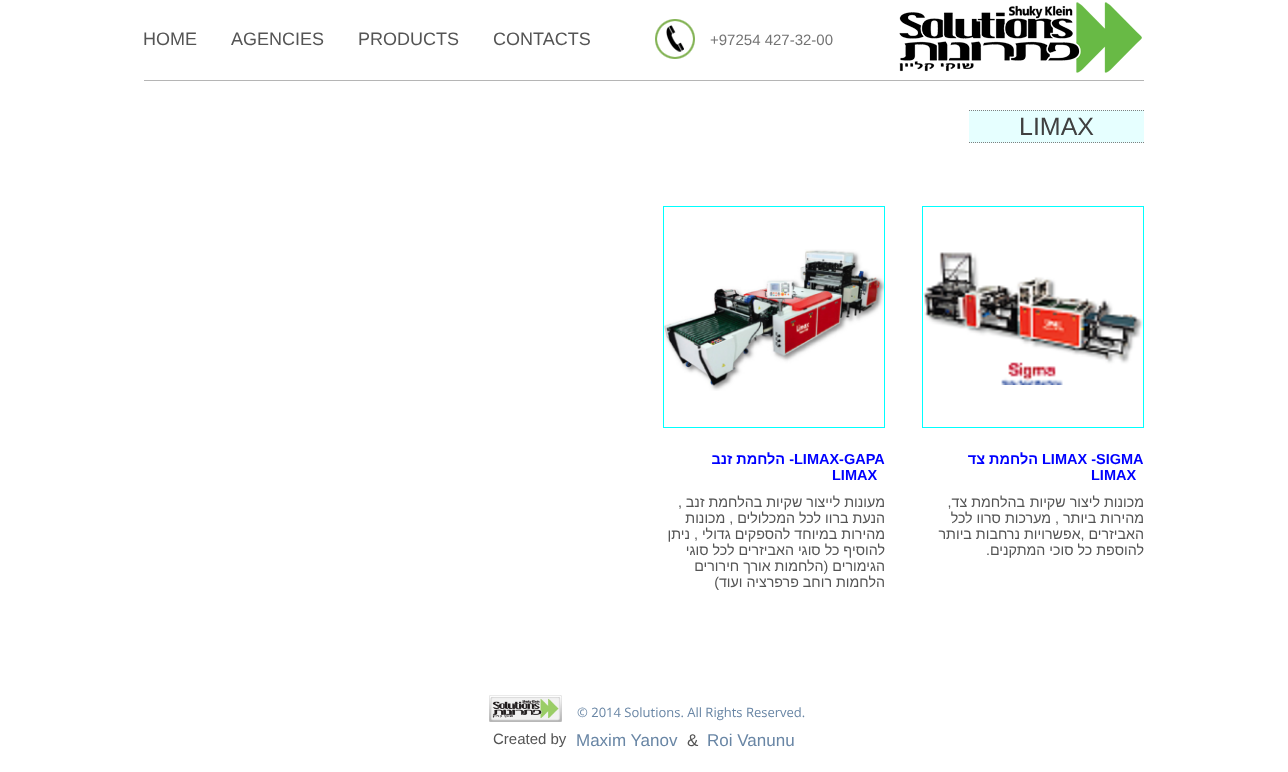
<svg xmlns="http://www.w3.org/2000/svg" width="1288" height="772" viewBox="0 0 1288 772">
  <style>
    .t1 { font: 15px Liberation Sans; fill: #737373; }
    .t2 { font: 18px Liberation Sans; fill: #545454; }
    .t3 { font: 25px Liberation Sans; fill: #404040; }
    .t4 { font: bold 14.5px Liberation Sans; fill: #00f; }
    .t5 { font: bold 14.5px Liberation Sans; direction: rtl; fill: #00f; }
    .t6 { font: 14.25px Liberation Sans; direction: rtl; fill: #545454; }
    .t7 { font: 13px Open Sans; fill: #6986a5; }
    .t8 { font: 17px Liberation Sans; fill: #6986a5; }
    .t9 { font: 17px Liberation Sans; fill: #545454; }
    .t10 { font: 15px Liberation Sans; fill: #545454; }
  </style>
  <rect width="100%" height="100%" fill="#fff"/>
  <image x="655" y="19" width="40" height="40" href="images/1.png"/>
  <image x="899" y="2" width="243" height="71" href="images/2.png"/>
  <text x="710" y="45" class="t1">+97254 427-32-00</text>
  <text x="493" y="45" class="t2">CONTACTS</text>
  <text x="358" y="45" class="t2">PRODUCTS</text>
  <text x="231" y="45" class="t2">AGENCIES</text>
  <text x="143" y="45" class="t2">HOME</text>
  <rect x="144" y="80" width="1000" height="1" fill="#b5b5b5"/>
  <rect x="969" y="110" width="175" height="33" fill="#e6ffff"/>
  <path d="M969 110.5H1144" fill="none" stroke="#808080" stroke-dasharray="1 1"/>
  <path d="M969 142.5H1144" fill="none" stroke="#808080" stroke-dasharray="1 1"/>
  <text x="1019" y="135" class="t3">LIMAX</text>
  <rect x="922.5" y="206.5" width="221" height="221" fill="none" stroke="#0ff"/>
  <image x="923" y="252" width="220" height="133" href="images/3.png"/>
  <text x="1042" y="464" class="t4">LIMAX -SIGMA</text>
  <text x="1038" y="464" class="t5">הלחמת צד</text>
  <text x="1091" y="480" class="t4">LIMAX</text>
  <text x="1144" y="507" class="t6">מכונות ליצור שקיות</text>
  <text x="1025" y="507" class="t6">בהלחמת צד,</text>
  <text x="1144" y="523" class="t6">מהירות ביותר , מערכות סרוו לכל</text>
  <text x="1144" y="539" class="t6">האביזרים ,אפשרויות נרחבות ביותר</text>
  <text x="1144" y="555" class="t6">להוספת כל סוכי המתקנים.</text>
  <rect x="663.5" y="206.5" width="221" height="221" fill="none" stroke="#0ff"/>
  <image x="664" y="249" width="220" height="142" href="images/4.png"/>
  <text x="794" y="464" class="t4">LIMAX-GAPA</text>
  <text x="794" y="464" class="t5">- הלחמת זנב</text>
  <text x="832" y="480" class="t4">LIMAX</text>
  <text x="885" y="507" class="t6">מעונות לייצור שקיות בהלחמת זנב ,</text>
  <text x="885" y="523" class="t6">הנעת ברוו לכל המכלולים , מכונות</text>
  <text x="885" y="539" class="t6">מהירות במיוחד להספקים גדולי , ניתן</text>
  <text x="885" y="555" class="t6">להוסיף כל סוגי האביזרים לכל סוגי</text>
  <text x="885" y="571" class="t6">הגימורים (הלחמות אורך חירורים</text>
  <text x="885" y="587" class="t6">הלחמות רוחב פרפרציה ועוד)</text>
  <text x="577" y="717" class="t7">© 2014 Solutions. All Rights Reserved.</text>
  <image x="489" y="695" width="73" height="27" href="images/5.png"/>
  <text x="707" y="746" class="t8">Roi Vanunu</text>
  <text x="687" y="746" class="t9">&amp;</text>
  <text x="576" y="746" class="t8">Maxim Yanov</text>
  <text x="493" y="744" class="t10">Created by</text>
</svg>
